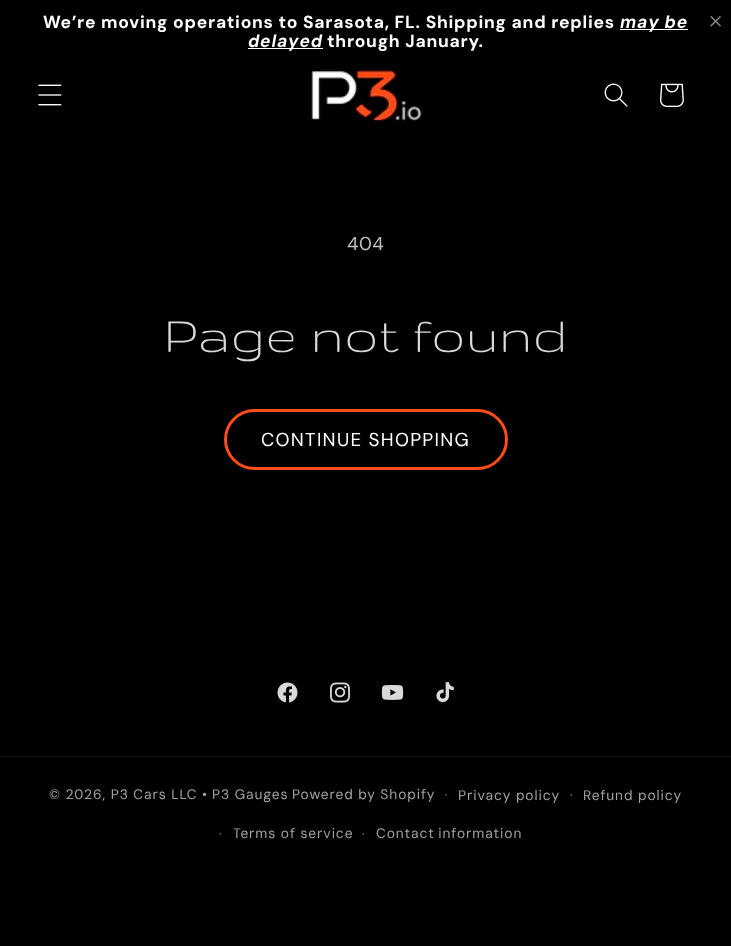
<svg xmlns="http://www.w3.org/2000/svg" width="731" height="946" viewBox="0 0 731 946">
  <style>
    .t1 { font: bold 17.5px DM Sans; letter-spacing: 0.75px; fill: #fff; }
    .t2 { font: italic bold 17.5px DM Sans; letter-spacing: 0.75px; fill: #fff; }
    .t3 { font: 18.75px DM Sans; letter-spacing: 0.5px; fill: #bfbfbf; }
    .t4 { font: 56.25px Gruppo; letter-spacing: 0.75px; fill: #d9d9d9; }
    .t5 { font: 18.75px 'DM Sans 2'; letter-spacing: 1.25px; fill: #fff; }
    .t6 { font: 13.75px 'DM Sans 2'; letter-spacing: 0.9px; fill: #a3a3a3; }
    .t7 { font: 12px 'DM Sans 2'; letter-spacing: 0.9px; fill: #a3a3a3; }
  </style>
  <rect width="100%" height="100%" fill="#000"/>
  <text x="43" y="28" class="t1">We’re moving operations to Sarasota, FL. Shipping and replies</text>
  <rect x="620" y="29" width="68" height="1" fill="#fff"/>
  <text x="620" y="28" class="t2">may be</text>
  <rect x="248" y="48" width="75" height="1" fill="#fff"/>
  <text x="248" y="47" class="t2">delayed</text>
  <text x="327" y="47" class="t1">through January.</text>
  <image x="710" y="15" width="11" height="12" href="images/1.png"/>
  <image x="38" y="84" width="24" height="22" href="images/2.png"/>
  <image x="311" y="65" width="111" height="58" href="images/3.png"/>
  <image x="604" y="83" width="24" height="24" href="images/4.png"/>
  <image x="660" y="83" width="24" height="24" href="images/5.png"/>
  <text x="347" y="250" class="t3">404</text>
  <text x="164" y="352" class="t4">Page not found</text>
  <rect x="225.5" y="410.5" width="281" height="58" rx="29" fill="none" stroke="#ff4c1b" stroke-width="3"/>
  <text x="261" y="446" class="t5">CONTINUE SHOPPING</text>
  <image x="277" y="682" width="21" height="21" href="images/6.png"/>
  <image x="330" y="682" width="20" height="21" href="images/7.png"/>
  <image x="381" y="685" width="23" height="15" href="images/8.png"/>
  <image x="436" y="682" width="18" height="21" href="images/9.png"/>
  <rect x="0" y="756" width="731" height="1" fill="#111"/>
  <text x="49" y="799" class="t6">© 2026, P3 Cars LLC •</text>
  <text x="212" y="799" class="t6">P3 Gauges</text>
  <text x="292" y="799" class="t6">Powered by Shopify</text>
  <text x="445" y="799" class="t7">·</text>
  <text x="458" y="800" class="t6">Privacy policy</text>
  <text x="570" y="799" class="t7">·</text>
  <text x="583" y="800" class="t6">Refund policy</text>
  <text x="219" y="838" class="t7">·</text>
  <text x="233" y="838" class="t6">Terms of service</text>
  <text x="362" y="838" class="t7">·</text>
  <text x="376" y="838" word-spacing="-1" class="t6">Contact information</text>
</svg>
